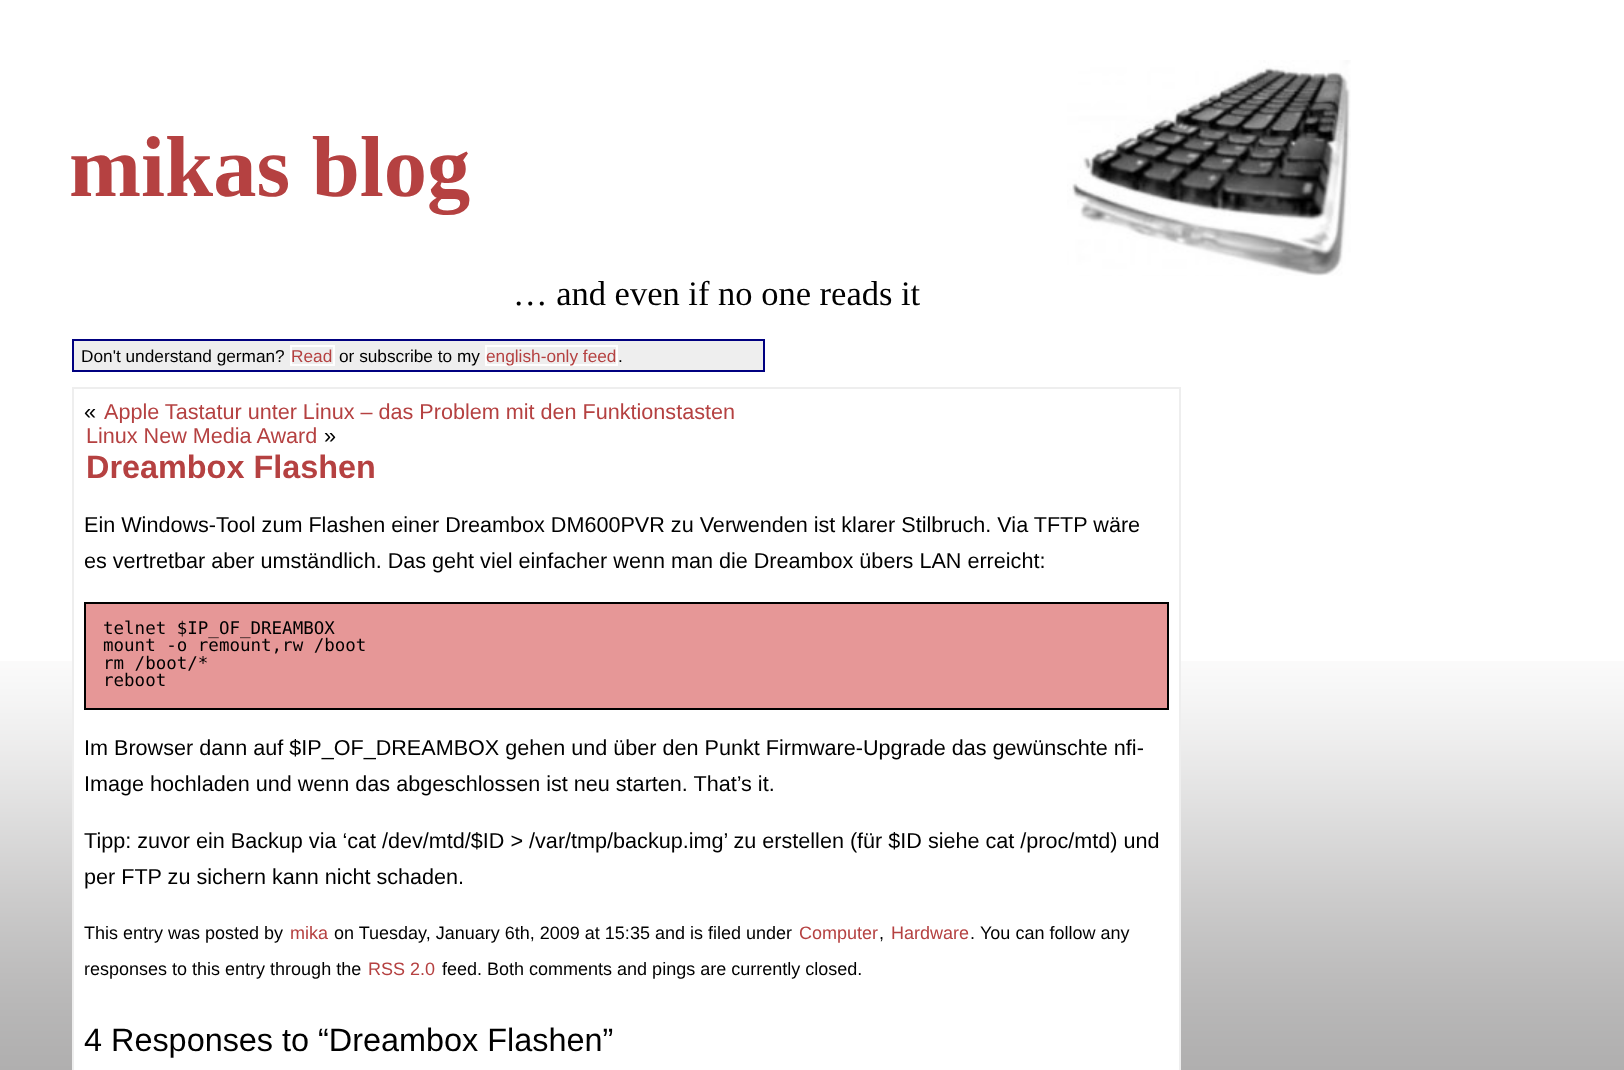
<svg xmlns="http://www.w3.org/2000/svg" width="1624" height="1070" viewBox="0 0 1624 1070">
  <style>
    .t1 { font: bold 86.5px Liberation Serif; fill: #b54141; }
    .t2 { font: 34.5px Liberation Serif; fill: #000; }
    .t3 { font: 17.25px Liberation Sans; fill: #000; }
    .t4 { font: 17.25px Liberation Sans; fill: #b54141; }
    .t5 { font: 21.6px Liberation Sans; fill: #000; }
    .t6 { font: 21.6px Liberation Sans; fill: #b54141; }
    .t7 { font: bold 32.4px Liberation Sans; fill: #b54141; }
    .t8 { font: 17.5px DejaVu Sans Mono; fill: #000; }
    .t9 { font: 18px Liberation Sans; fill: #000; }
    .t10 { font: 18px Liberation Sans; fill: #b54141; }
    .t11 { font: 32.4px Liberation Sans; fill: #000; }
  </style>
  <rect width="100%" height="100%" fill="#fff"/>
  <image x="0" y="661" width="1624" height="409" href="images/1.png"/>
  <image x="1067" y="60" width="284" height="216" href="images/2.png"/>
  <text x="69" y="196" class="t1">mikas blog</text>
  <text x="513" y="305" class="t2">… and even if no one reads it</text>
  <rect x="73" y="340" width="691" height="31" fill="#eee" stroke="#000080" stroke-width="2"/>
  <text x="81" y="362" class="t3">Don't understand german?</text>
  <rect x="291" y="346" width="43" height="19" fill="none" stroke="#fff" stroke-width="2"/>
  <text x="291" y="362" class="t4">Read</text>
  <text x="339" y="362" class="t3">or subscribe to my</text>
  <rect x="486" y="346" width="131" height="19" fill="none" stroke="#fff" stroke-width="2"/>
  <text x="486" y="362" class="t4">english-only feed</text>
  <text x="618" y="362" class="t3">.</text>
  <rect x="74" y="661" width="1105" height="409" fill="#fff"/>
  <rect x="73" y="388" width="1107" height="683" fill="none" stroke="#eee" stroke-width="2"/>
  <text x="84" y="419" class="t5">«</text>
  <text x="104" y="419" class="t6">Apple Tastatur unter Linux – das Problem mit den Funktionstasten</text>
  <rect x="85" y="424" width="232" height="25" fill="none" stroke="#fff" stroke-width="2"/>
  <text x="86" y="443" class="t6">Linux New Media Award</text>
  <text x="324" y="443" class="t5">»</text>
  <text x="86" y="478" class="t7">Dreambox Flashen</text>
  <text x="84" y="532" class="t5">Ein Windows-Tool zum Flashen einer Dreambox DM600PVR zu Verwenden ist klarer Stilbruch. Via TFTP wäre</text>
  <text x="84" y="568" class="t5">es vertretbar aber umständlich. Das geht viel einfacher wenn man die Dreambox übers LAN erreicht:</text>
  <rect x="85" y="603" width="1083" height="106" fill="#e69797" stroke="#000" stroke-width="2"/>
  <text x="103" y="634" class="t8">telnet $IP_OF_DREAMBOX</text>
  <text x="103" y="651" class="t8">mount -o remount,rw /boot</text>
  <text x="103" y="669" class="t8">rm /boot/*</text>
  <text x="103" y="686" class="t8">reboot</text>
  <text x="84" y="755" class="t5">Im Browser dann auf $IP_OF_DREAMBOX gehen und über den Punkt Firmware-Upgrade das gewünschte nfi-</text>
  <text x="84" y="791" class="t5">Image hochladen und wenn das abgeschlossen ist neu starten. That’s it.</text>
  <text x="84" y="848" class="t5">Tipp: zuvor ein Backup via ‘cat /dev/mtd/$ID &gt; /var/tmp/backup.img’ zu erstellen (für $ID siehe cat /proc/mtd) und</text>
  <text x="84" y="884" class="t5">per FTP zu sichern kann nicht schaden.</text>
  <text x="84" y="939" class="t9">This entry was posted by</text>
  <text x="290" y="939" class="t10">mika</text>
  <text x="334" y="939" class="t9">on Tuesday, January 6th, 2009 at 15:35 and is filed under</text>
  <text x="799" y="939" class="t10">Computer</text>
  <text x="879" y="939" class="t9">,</text>
  <text x="891" y="939" class="t10">Hardware</text>
  <text x="970" y="939" class="t9">.</text>
  <text x="980" y="939" class="t9">You can follow any</text>
  <text x="84" y="975" class="t9">responses to this entry through the</text>
  <text x="368" y="975" class="t10">RSS 2.0</text>
  <text x="442" y="975" class="t9">feed. Both comments and pings are currently closed.</text>
  <text x="84" y="1051" class="t11">4 Responses to “Dreambox Flashen”</text>
</svg>
